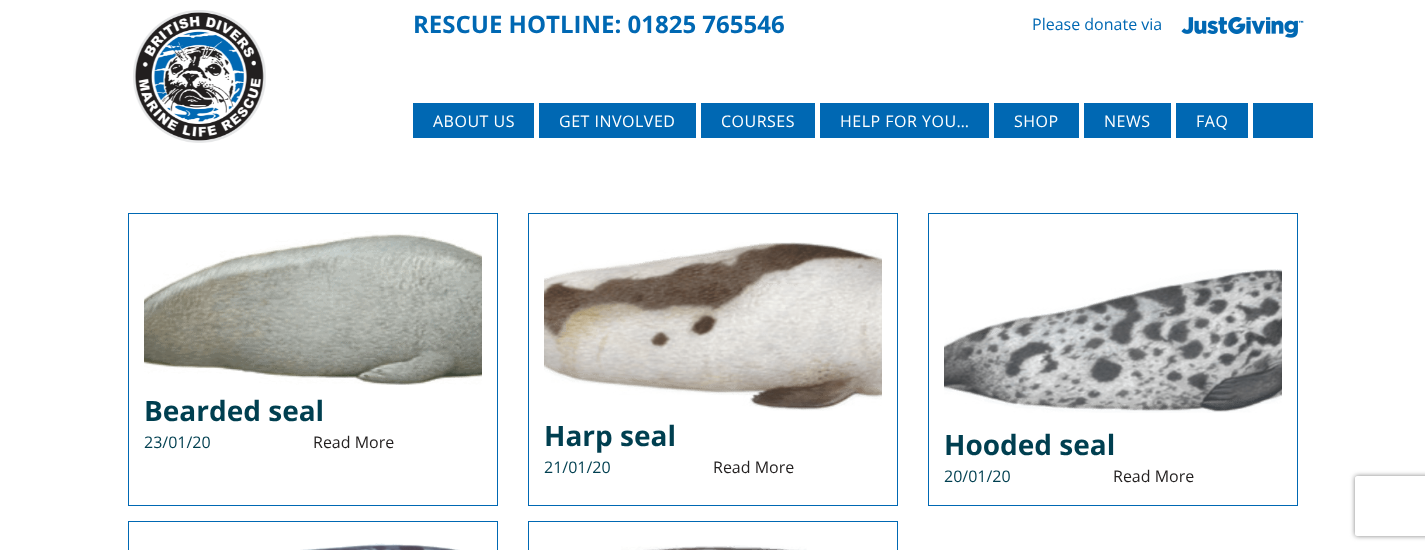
<svg xmlns="http://www.w3.org/2000/svg" width="1425" height="550" viewBox="0 0 1425 550">
  <style>
    .t1 { font: bold 24px Open Sans; fill: #0068b3; }
    .t2 { font: 16px Open Sans; fill: #0068b3; }
    .t3 { font: 16px Open Sans; letter-spacing: 0.5px; fill: #fff; }
    .t4 { font: bold 28px Open Sans; fill: #003f50; }
    .t5 { font: 16px Open Sans; fill: #003f50; }
    .t6 { font: 16px Open Sans; fill: #221f1f; }
  </style>
  <defs>
    <clipPath id="clip1"><path d="M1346 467H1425V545H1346ZM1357 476H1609C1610 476 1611 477 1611 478V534C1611 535 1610 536 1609 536H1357C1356 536 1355 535 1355 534V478C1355 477 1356 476 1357 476Z" clip-rule="evenodd"/></clipPath>
  </defs>
  <rect width="100%" height="100%" fill="#fff"/>
  <image x="133" y="10" width="133" height="133" href="images/1.png"/>
  <text x="413" y="33" class="t1">RESCUE HOTLINE: 01825 765546</text>
  <text x="1032" y="30" class="t2">Please donate via</text>
  <image x="1181" y="16" width="123" height="22" href="images/2.png"/>
  <rect x="413" y="103" width="900" height="35" fill="#0068b3"/>
  <rect x="534" y="103" width="5" height="35" fill="#fff"/>
  <text x="433" y="127" class="t3">ABOUT US</text>
  <rect x="696" y="103" width="5" height="35" fill="#fff"/>
  <text x="559" y="127" class="t3">GET INVOLVED</text>
  <rect x="815" y="103" width="5" height="35" fill="#fff"/>
  <text x="721" y="127" class="t3">COURSES</text>
  <rect x="989" y="103" width="5" height="35" fill="#fff"/>
  <text x="840" y="127" class="t3">HELP FOR YOU…</text>
  <rect x="1079" y="103" width="5" height="35" fill="#fff"/>
  <text x="1014" y="127" class="t3">SHOP</text>
  <rect x="1171" y="103" width="5" height="35" fill="#fff"/>
  <text x="1104" y="127" class="t3">NEWS</text>
  <rect x="1248" y="103" width="5" height="35" fill="#fff"/>
  <text x="1196" y="127" class="t3">FAQ</text>
  <rect x="128.5" y="213.5" width="369" height="292" fill="none" stroke="#0068b3"/>
  <image x="144" y="231" width="338" height="154" href="images/3.png"/>
  <text x="144" y="421" class="t4">Bearded seal</text>
  <text x="144" y="448" class="t5">23/01/20</text>
  <text x="313" y="448" class="t6">Read More</text>
  <rect x="528.5" y="213.5" width="369" height="292" fill="none" stroke="#0068b3"/>
  <image x="544" y="242" width="338" height="169" href="images/4.png"/>
  <text x="544" y="446" class="t4">Harp seal</text>
  <text x="544" y="473" class="t5">21/01/20</text>
  <text x="713" y="473" class="t6">Read More</text>
  <rect x="928.5" y="213.5" width="369" height="292" fill="none" stroke="#0068b3"/>
  <image x="944" y="269" width="338" height="144" href="images/5.png"/>
  <text x="944" y="455" class="t4">Hooded seal</text>
  <text x="944" y="482" class="t5">20/01/20</text>
  <text x="1113" y="482" class="t6">Read More</text>
  <rect x="128.5" y="521.5" width="369" height="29" fill="none" stroke="#0068b3"/>
  <image x="300" y="543" width="160" height="7" href="images/6.png"/>
  <rect x="528.5" y="521.5" width="369" height="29" fill="none" stroke="#0068b3"/>
  <image x="621" y="545" width="186" height="5" href="images/7.png"/>
  <g clip-path="url(#clip1)">
    <rect x="1355" y="476" width="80" height="60" rx="2" fill="#808080" filter="blur(2.5px)"/>
  </g>
</svg>
